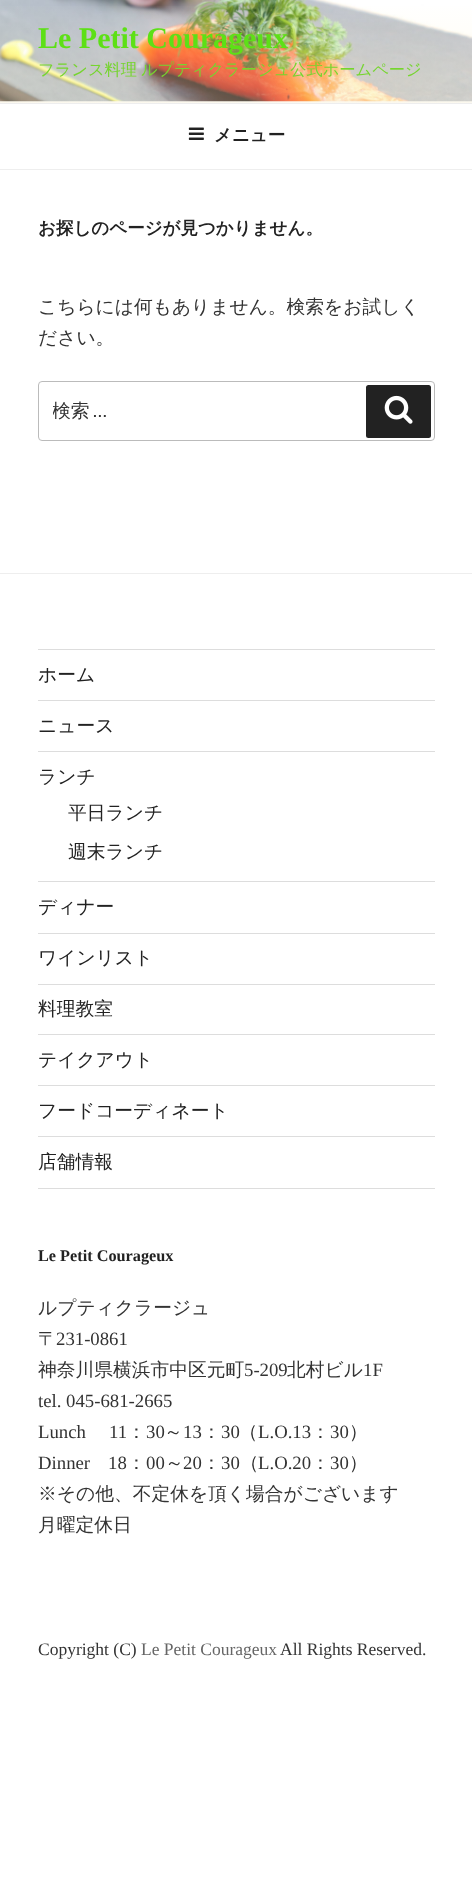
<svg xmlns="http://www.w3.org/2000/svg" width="472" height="1883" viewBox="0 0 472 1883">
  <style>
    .t1 { font: bold 30px Liberation Serif; fill: #5de016; }
    .t2 { font: 500 16.25px WenQuanYi Zen Hei; fill: #76d52f; }
    .t3 { font: bold 17.5px WenQuanYi Zen Hei; fill: #222; }
    .t4 { font: 500 18.75px WenQuanYi Zen Hei; fill: #333; }
    .t5 { font: 18.75px Libre Franklin; fill: #333; }
    .t6 { font: 500 18.75px WenQuanYi Zen Hei; fill: #222; }
    .t7 { font: bold 16.25px Liberation Serif; fill: #222; }
    .t8 { font: 18.75px Liberation Serif; fill: #333; }
    .t9 { font: 17.5px Liberation Serif; fill: #333; }
    .t10 { font: 17.5px Liberation Serif; fill: #666; }
  </style>
  <defs>
    <linearGradient id="g1" gradientUnits="userSpaceOnUse" x1="236" y1="0" x2="236" y2="103"><stop offset="0" stop-color="#fff6d5" stop-opacity="0"/><stop offset="0.75" stop-color="#fff6d5" stop-opacity="0.3"/><stop offset="1" stop-color="#fff6d5" stop-opacity="0.3"/></linearGradient>
    <clipPath id="clip1"><rect x="53" y="400" width="363" height="24"/></clipPath>
  </defs>
  <rect width="100%" height="100%" fill="#fff"/>
  <rect x="0" y="101" width="472" height="2" fill="#fafafa"/>
  <image x="0" y="0" width="472" height="102" href="images/1.png"/>
  <rect x="0" y="6" width="472" height="97" fill="url(#g1)"/>
  <text x="38" y="48" class="t1">Le Petit Courageux</text>
  <text x="38" y="75" word-spacing="-1" class="t2">フランス料理 ルプティクラージュ公式ホームページ</text>
  <rect x="0" y="103" width="472" height="1" fill="#eee"/>
  <rect x="0" y="169" width="472" height="1" fill="#eee"/>
  <image x="188" y="127" width="16" height="13" href="images/2.png"/>
  <text x="214" y="141" class="t3">メニュー</text>
  <text x="38" y="234" class="t3">お探しのページが見つかりません。</text>
  <text x="38" y="313" class="t4">こちらには何もありません。検索をお試しく</text>
  <text x="38" y="344" class="t4">ださい。</text>
  <rect x="38.5" y="381.5" width="396" height="59" rx="3.5" fill="none" stroke="#bbb"/>
  <g clip-path="url(#clip1)">
    <text x="52" y="417" class="t4">検索</text>
  </g>
  <text x="93" y="417" class="t5">…</text>
  <rect x="366" y="385" width="65" height="53" rx="2.5" fill="#222"/>
  <image x="384" y="395" width="29" height="29" href="images/3.png"/>
  <rect x="0" y="573" width="472" height="1" fill="#eee"/>
  <rect x="38" y="649" width="397" height="1" fill="#ddd"/>
  <rect x="38" y="700" width="397" height="1" fill="#ddd"/>
  <text x="38" y="681" class="t6">ホーム</text>
  <rect x="38" y="751" width="397" height="1" fill="#ddd"/>
  <text x="38" y="732" class="t6">ニュース</text>
  <rect x="38" y="881" width="397" height="1" fill="#ddd"/>
  <text x="38" y="783" class="t6">ランチ</text>
  <text x="68" y="819" class="t6">平日ランチ</text>
  <text x="68" y="858" class="t6">週末ランチ</text>
  <rect x="38" y="933" width="397" height="1" fill="#ddd"/>
  <text x="38" y="913" class="t6">ディナー</text>
  <rect x="38" y="984" width="397" height="1" fill="#ddd"/>
  <text x="38" y="964" class="t6">ワインリスト</text>
  <rect x="38" y="1034" width="397" height="1" fill="#ddd"/>
  <text x="38" y="1015" class="t6">料理教室</text>
  <rect x="38" y="1085" width="397" height="1" fill="#ddd"/>
  <text x="38" y="1066" class="t6">テイクアウト</text>
  <rect x="38" y="1136" width="397" height="1" fill="#ddd"/>
  <text x="38" y="1117" class="t6">フードコーディネート</text>
  <rect x="38" y="1188" width="397" height="1" fill="#ddd"/>
  <text x="38" y="1168" class="t6">店舗情報</text>
  <text x="38" y="1261" class="t7">Le Petit Courageux</text>
  <text x="38" y="1314" class="t4">ルプティクラージュ</text>
  <text x="38" y="1345" class="t4">〒</text>
  <text x="56" y="1345" class="t8">231-0861</text>
  <text x="38" y="1376" class="t4">神奈川県横浜市中区元町</text>
  <text x="244" y="1376" class="t8">5-209</text>
  <text x="287" y="1376" class="t4">北村ビル</text>
  <text x="363" y="1376" class="t8">1F</text>
  <text x="38" y="1407" class="t8">tel. 045-681-2665</text>
  <text x="38" y="1438" class="t8">Lunch</text>
  <text x="109" y="1438" class="t8">11</text>
  <text x="127" y="1438" class="t4">：</text>
  <text x="146" y="1438" class="t8">30</text>
  <text x="164" y="1438" class="t4">～</text>
  <text x="183" y="1438" class="t8">13</text>
  <text x="202" y="1438" class="t4">：</text>
  <text x="221" y="1438" class="t8">30</text>
  <text x="239" y="1438" class="t4">（</text>
  <text x="258" y="1438" class="t8">L.O.13</text>
  <text x="311" y="1438" class="t4">：</text>
  <text x="330" y="1438" class="t8">30</text>
  <text x="349" y="1438" class="t4">）</text>
  <text x="38" y="1469" class="t8">Dinner</text>
  <text x="108" y="1469" class="t8">18</text>
  <text x="127" y="1469" class="t4">：</text>
  <text x="146" y="1469" class="t8">00</text>
  <text x="165" y="1469" class="t4">～</text>
  <text x="183" y="1469" class="t8">20</text>
  <text x="202" y="1469" class="t4">：</text>
  <text x="221" y="1469" class="t8">30</text>
  <text x="240" y="1469" class="t4">（</text>
  <text x="258" y="1469" class="t8">L.O.20</text>
  <text x="311" y="1469" class="t4">：</text>
  <text x="330" y="1469" class="t8">30</text>
  <text x="349" y="1469" class="t4">）</text>
  <text x="38" y="1500" class="t4">※その他、不定休を頂く場合がございます</text>
  <text x="38" y="1531" class="t4">月曜定休日</text>
  <text x="38" y="1655" class="t9">Copyright (C)</text>
  <text x="141" y="1655" class="t10">Le Petit Courageux</text>
  <text x="280" y="1655" class="t9">All Rights Reserved.</text>
</svg>
